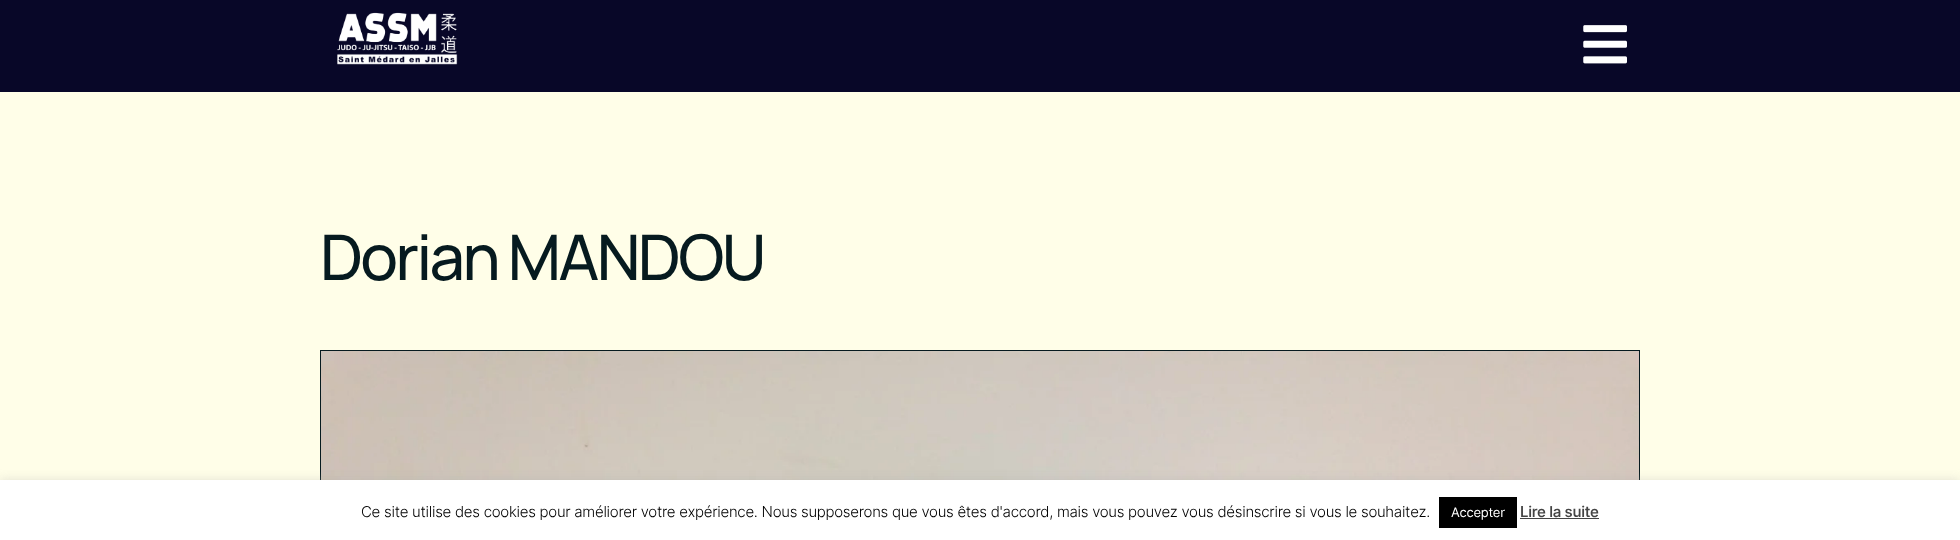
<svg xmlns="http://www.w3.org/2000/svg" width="1960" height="540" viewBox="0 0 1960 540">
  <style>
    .t1 { font: 500 63px Manrope; letter-spacing: -2.6px; fill: #061a1f; }
    .t2 { font: 300 15px Inter; letter-spacing: -0.27px; fill: #000; }
    .t3 { font: 13px Inter; letter-spacing: -0.27px; fill: #fff; }
    .t4 { font: 500 15px Inter; letter-spacing: -0.27px; fill: #444; }
  </style>
  <rect width="100%" height="100%" fill="#fffee8"/>
  <rect x="0" y="0" width="1960" height="92" fill="#080728"/>
  <image x="337" y="12" width="121" height="53" href="images/1.png"/>
  <image x="1583" y="25" width="44" height="39" href="images/2.png"/>
  <text x="320" y="280" class="t1">Dorian MANDOU</text>
  <rect x="320.5" y="350.5" width="1319" height="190" fill="none" stroke="#061a1f"/>
  <image x="321" y="351" width="1318" height="129" href="images/3.png"/>
  <rect x="0" y="479" width="1960" height="60" fill="#acabab4d" filter="blur(5px)"/>
  <rect x="0" y="480" width="1960" height="60" fill="#fff"/>
  <text x="361" y="517" class="t2">Ce site utilise des cookies pour améliorer votre expérience. Nous supposerons que vous êtes d'accord, mais vous pouvez vous désinscrire si vous le souhaitez.</text>
  <rect x="1439" y="497" width="78" height="31" fill="#000"/>
  <text x="1451" y="517" class="t3">Accepter</text>
  <text x="1520" y="517" class="t4">Lire la suite</text>
  <rect x="1520" y="518" width="79" height="1" fill="#444"/>
</svg>
